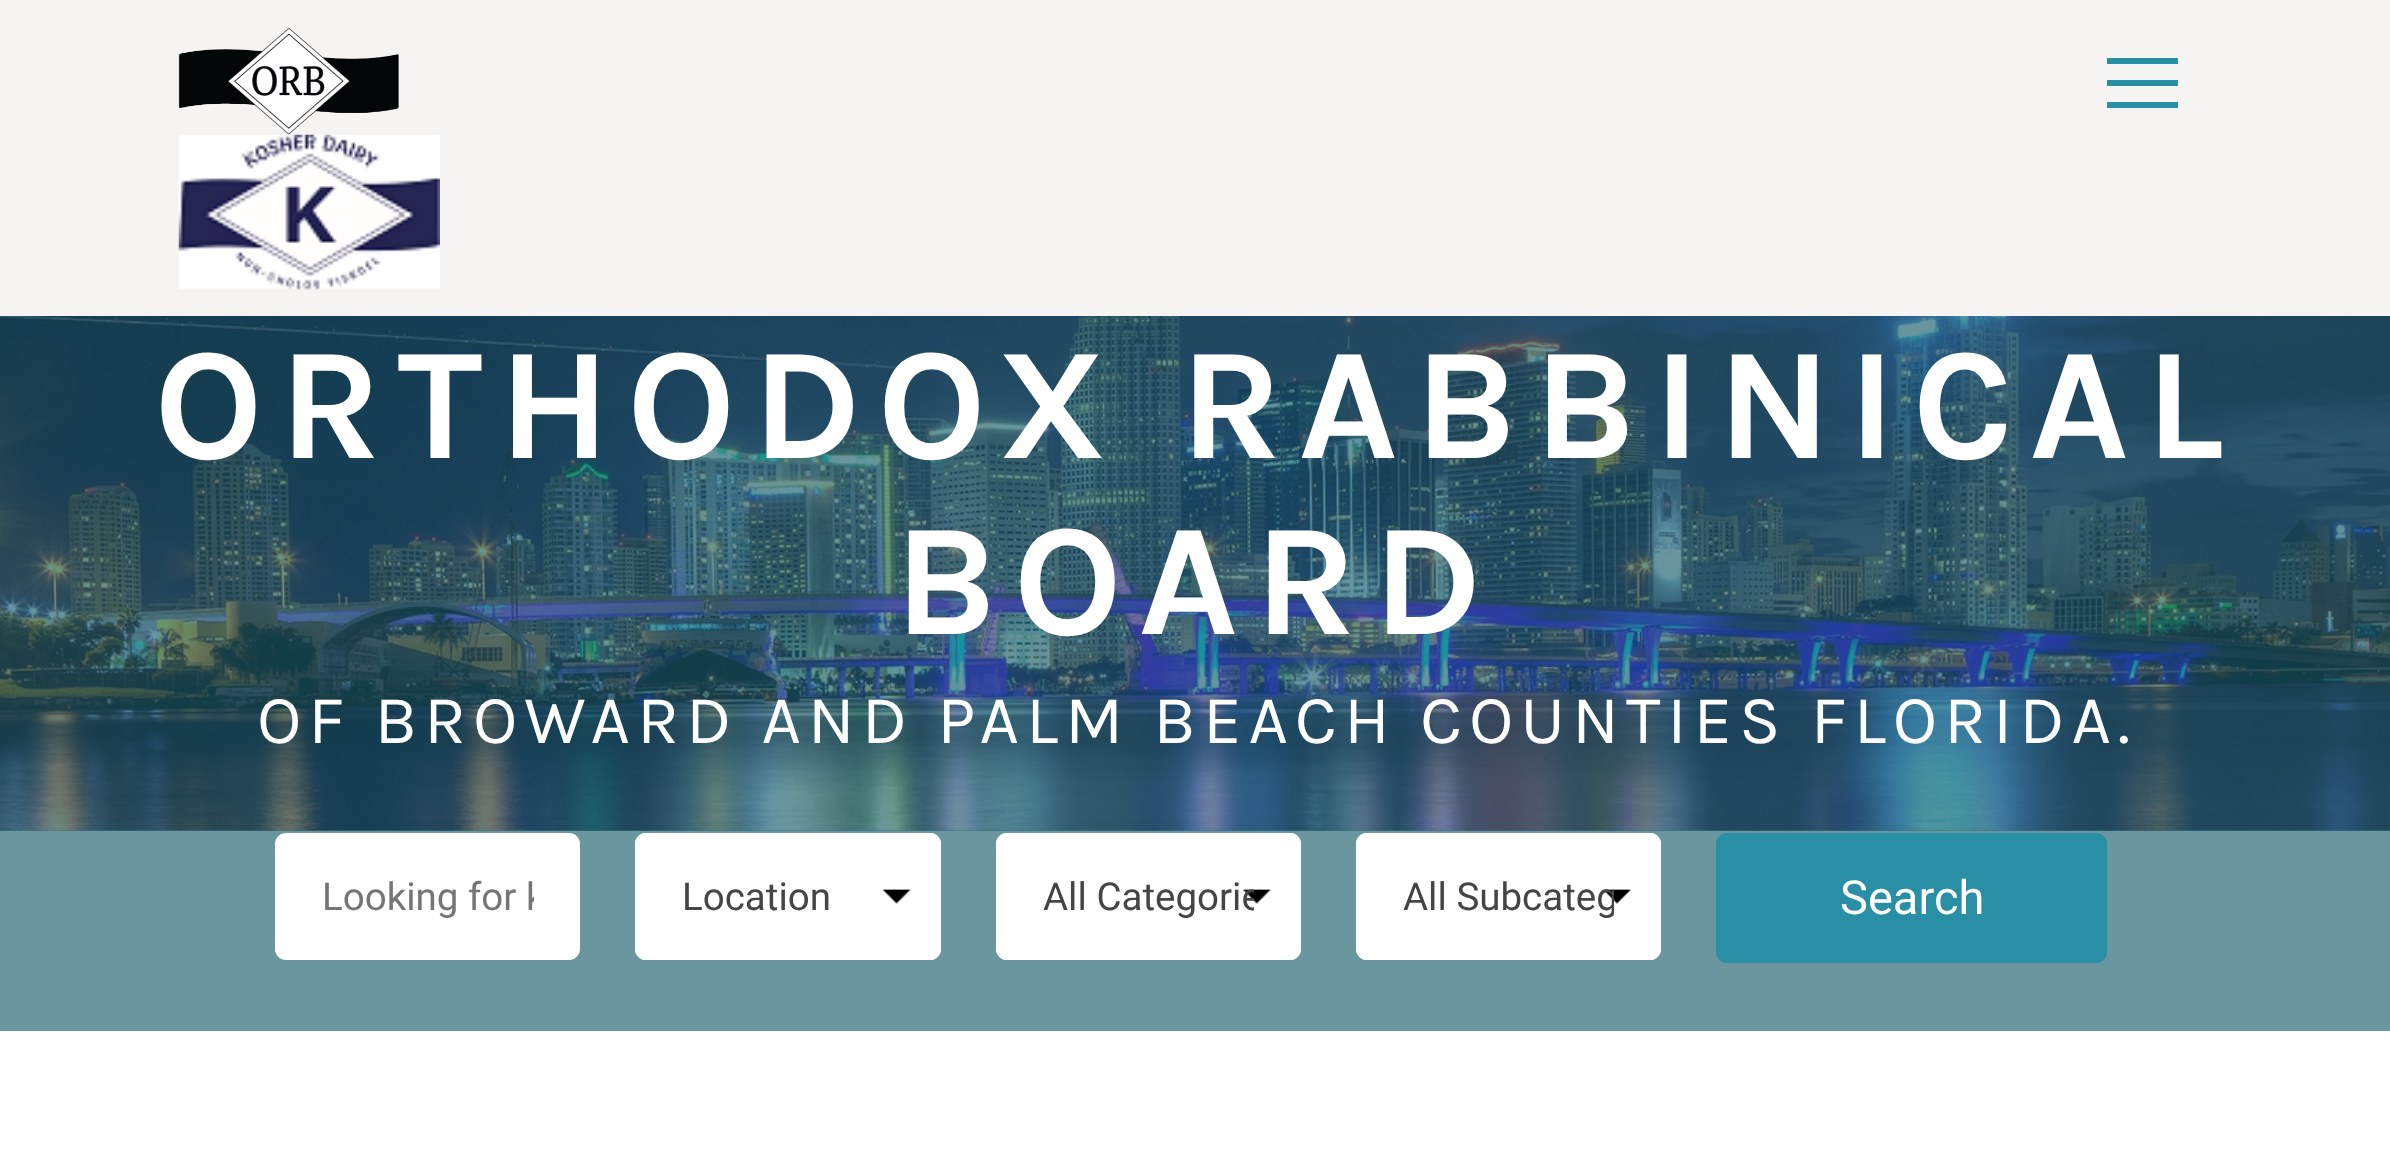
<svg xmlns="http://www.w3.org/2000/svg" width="2390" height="1166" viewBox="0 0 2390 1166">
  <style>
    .t1 { font: bold 159.5px Karla; letter-spacing: 16px; fill: #fff; }
    .t2 { font: 68.75px Karla; letter-spacing: 6.9px; fill: #fff; }
    .t3 { font: 38.5px Roboto; fill: #757575; }
    .t4 { font: 38.5px Roboto; fill: #454545; }
    .t5 { font: 47px Roboto; fill: #fff; }
  </style>
  <defs>
    <clipPath id="clip1"><rect x="322" y="875" width="212" height="44"/></clipPath>
    <clipPath id="clip2"><rect x="1042" y="869" width="212" height="55"/></clipPath>
    <clipPath id="clip3"><rect x="1403" y="869" width="211" height="55"/></clipPath>
  </defs>
  <rect width="100%" height="100%" fill="#fff"/>
  <rect x="0" y="0" width="2390" height="316" fill="#f5f4f2"/>
  <image x="178" y="27" width="221" height="108" href="images/1.png"/>
  <image x="178" y="134" width="262" height="156" href="images/2.png"/>
  <rect x="2107" y="58" width="71" height="6" fill="#298fa5"/>
  <rect x="2107" y="80" width="71" height="6" fill="#298fa5"/>
  <rect x="2107" y="102" width="71" height="6" fill="#298fa5"/>
  <rect x="0" y="830" width="2390" height="1" fill="#36717e"/>
  <image x="0" y="316" width="2390" height="515" href="images/3.png"/>
  <text x="154" y="458" class="t1">ORTHODOX RABBINICAL</text>
  <text x="894" y="634" class="t1">BOARD</text>
  <text x="257" y="743" class="t2">OF BROWARD AND PALM BEACH COUNTIES FLORIDA.</text>
  <rect x="0" y="831" width="2390" height="200" fill="#6a96a0"/>
  <rect x="276.5" y="834.5" width="302" height="124" rx="9.5" fill="#fff" stroke="#fff" stroke-width="3"/>
  <g clip-path="url(#clip1)">
    <text x="322" y="910" class="t3">Looking for k</text>
  </g>
  <rect x="635" y="833" width="306" height="127" rx="11" fill="#fff"/>
  <image x="882" y="889" width="29" height="15" href="images/4.png"/>
  <rect x="636.5" y="834.5" width="303" height="124" rx="9.5" fill="none" stroke="#fff" stroke-width="3"/>
  <text x="682" y="910" class="t4">Location</text>
  <rect x="996" y="833" width="305" height="127" rx="11" fill="#fff"/>
  <image x="1243" y="889" width="28" height="15" href="images/5.png"/>
  <rect x="997.5" y="834.5" width="302" height="124" rx="9.5" fill="none" stroke="#fff" stroke-width="3"/>
  <g clip-path="url(#clip2)">
    <text x="1043" y="910" class="t4">All Categorie</text>
  </g>
  <rect x="1356" y="833" width="305" height="127" rx="11" fill="#fff"/>
  <image x="1603" y="889" width="28" height="15" href="images/6.png"/>
  <rect x="1357.5" y="834.5" width="302" height="124" rx="9.5" fill="none" stroke="#fff" stroke-width="3"/>
  <g clip-path="url(#clip3)">
    <text x="1403" y="910" class="t4">All Subcateg</text>
  </g>
  <rect x="1716" y="833" width="391" height="130" rx="11" fill="#298fa5"/>
  <text x="1840" y="914" class="t5">Search</text>
</svg>
